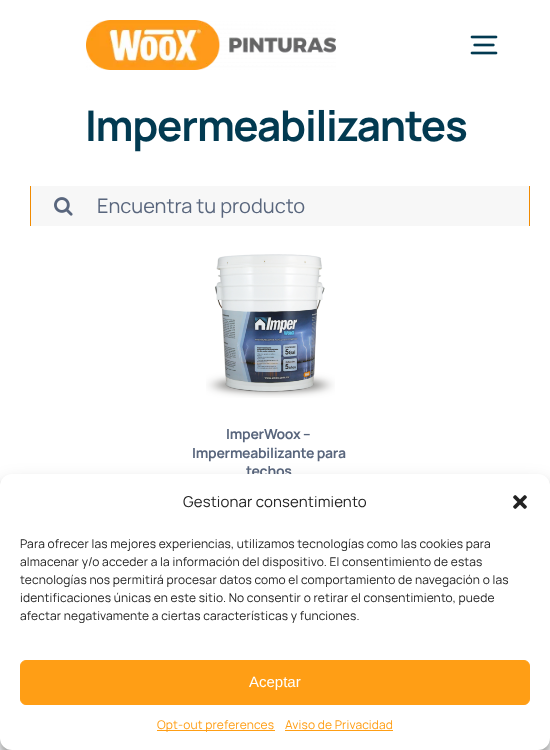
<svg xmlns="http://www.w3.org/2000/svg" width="550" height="750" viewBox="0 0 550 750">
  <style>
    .t1 { font: bold 42.25px Manrope; letter-spacing: -1.25px; fill: #023a51; }
    .t2 { font: 20px Manrope; fill: #59667d; }
    .t3 { font: bold 14px Manrope; letter-spacing: -0.25px; fill: #59667d; }
    .t4 { font: 15px Manrope; letter-spacing: 0.15px; fill: #222; }
    .t5 { font: 12px Manrope; letter-spacing: 0.15px; fill: #222; }
    .t6 { font: 15px Liberation Sans; fill: #fff; }
    .t7 { font: 12px Manrope; letter-spacing: 0.15px; fill: #ff9e15; }
  </style>
  <defs>
    <clipPath id="clip1"><rect x="30" y="186" width="500" height="40"/></clipPath>
  </defs>
  <rect width="100%" height="100%" fill="#fff"/>
  <image x="86" y="20" width="250" height="50" href="images/1.png"/>
  <image x="470" y="35" width="28" height="20" href="images/2.png"/>
  <text x="85" y="141" class="t1">Impermeabilizantes</text>
  <rect x="31" y="186" width="498" height="40" fill="#f7f7f7"/>
  <g clip-path="url(#clip1)">
    <rect x="30.5" y="173.5" width="499" height="65" fill="none" stroke="#f18a00"/>
  </g>
  <image x="54" y="197" width="19" height="19" href="images/3.png"/>
  <text x="97" y="213" class="t2">Encuentra tu producto</text>
  <image x="206" y="254" width="129" height="144" href="images/4.png"/>
  <text x="226" y="439" class="t3">ImperWoox –</text>
  <text x="192" y="458" class="t3">Impermeabilizante para</text>
  <text x="246" y="476" class="t3">techos</text>
  <rect x="0" y="738" width="550" height="12" fill="#f9fafb"/>
  <rect x="0" y="480" width="550" height="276" rx="12" fill="#0000003b" filter="blur(3px)"/>
  <rect x="0" y="484" width="550" height="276" rx="12" fill="#00000030" filter="blur(10px)"/>
  <rect x="480" y="676" width="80" height="60" rx="2" fill="#808080" filter="blur(2.5px)"/>
  <rect x="0" y="474" width="550" height="276" rx="12" fill="#fff"/>
  <text x="183" y="507" class="t4">Gestionar consentimiento</text>
  <image x="513" y="495" width="14" height="14" href="images/5.png"/>
  <text x="20" y="548" class="t5">Para ofrecer las mejores experiencias, utilizamos tecnologías como las cookies para</text>
  <text x="20" y="566" class="t5">almacenar y/o acceder a la información del dispositivo. El consentimiento de estas</text>
  <text x="20" y="584" class="t5">tecnologías nos permitirá procesar datos como el comportamiento de navegación o las</text>
  <text x="20" y="602" class="t5">identificaciones únicas en este sitio. No consentir o retirar el consentimiento, puede</text>
  <text x="20" y="620" class="t5">afectar negativamente a ciertas características y funciones.</text>
  <rect x="20.5" y="660.5" width="509" height="44" rx="5.5" fill="#ff9e15" stroke="#ff9e15"/>
  <text x="249" y="687" class="t6">Aceptar</text>
  <rect x="157" y="730" width="118" height="1" fill="#ff9e15"/>
  <text x="157" y="729" class="t7">Opt-out preferences</text>
  <text x="285" y="729" class="t7">Aviso de Privacidad</text>
  <rect x="285" y="730" width="108" height="1" fill="#ff9e15"/>
</svg>
